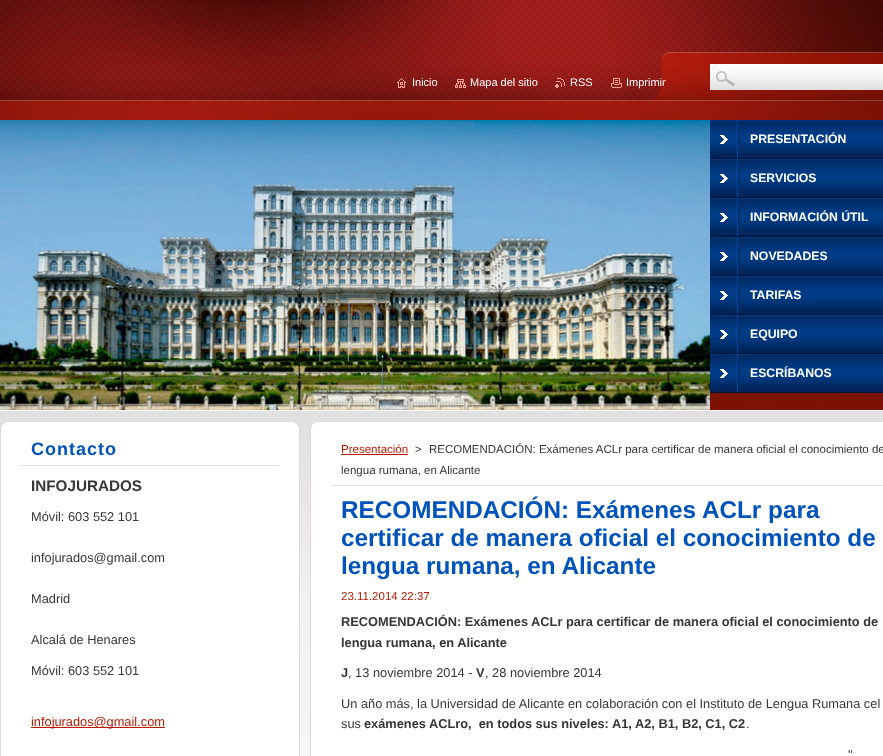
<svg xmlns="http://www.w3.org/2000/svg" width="883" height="756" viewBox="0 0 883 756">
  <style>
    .t1 { font: 11px Liberation Sans; fill: #fff; }
    .t2 { font: bold 12.25px Liberation Sans; fill: #fff; }
    .t3 { font: bold 18px Liberation Sans; letter-spacing: 1px; fill: #0053ba; }
    .t4 { font: bold 15.25px Liberation Sans; fill: #363636; }
    .t5 { font: 12.8px Liberation Sans; fill: #363636; }
    .t6 { font: 12.8px Liberation Sans; fill: #b81a00; }
    .t7 { font: 11.5px Liberation Sans; fill: #b81a00; }
    .t8 { font: 11.5px Liberation Sans; fill: #363636; }
    .t9 { font: bold 24.3px Liberation Sans; fill: #0053ba; }
    .t10 { font: bold 12.8px Liberation Sans; fill: #363636; }
  </style>
  <rect width="100%" height="100%" fill="#fff"/>
  <image x="0" y="411" width="883" height="345" href="images/1.png"/>
  <image x="0" y="0" width="883" height="411" href="images/2.png"/>
  <image x="397" y="78" width="9" height="10" href="images/3.png"/>
  <text x="412" y="86" class="t1">Inicio</text>
  <image x="455" y="79" width="11" height="9" href="images/4.png"/>
  <text x="470" y="86" class="t1">Mapa del sitio</text>
  <image x="555" y="78" width="10" height="10" href="images/5.png"/>
  <text x="570" y="86" class="t1">RSS</text>
  <image x="611" y="78" width="11" height="10" href="images/6.png"/>
  <text x="626" y="86" class="t1">Imprimir</text>
  <rect x="710" y="64" width="173" height="1" fill="#fff"/>
  <image x="710" y="65" width="173" height="25" href="images/7.png"/>
  <image x="0" y="120" width="710" height="290" href="images/8.png"/>
  <image x="710" y="120" width="173" height="39" href="images/9.png"/>
  <text x="750" y="143" class="t2">PRESENTACIÓN</text>
  <image x="710" y="159" width="173" height="39" href="images/9.png"/>
  <text x="750" y="182" class="t2">SERVICIOS</text>
  <image x="710" y="198" width="173" height="39" href="images/9.png"/>
  <text x="750" y="221" class="t2">INFORMACIÓN ÚTIL</text>
  <image x="710" y="237" width="173" height="39" href="images/9.png"/>
  <text x="750" y="260" class="t2">NOVEDADES</text>
  <image x="710" y="276" width="173" height="39" href="images/9.png"/>
  <text x="750" y="299" class="t2">TARIFAS</text>
  <image x="710" y="315" width="173" height="39" href="images/9.png"/>
  <text x="750" y="338" class="t2">EQUIPO</text>
  <image x="710" y="354" width="173" height="39" href="images/9.png"/>
  <text x="750" y="377" class="t2">ESCRÍBANOS</text>
  <image x="0" y="421" width="300" height="8" href="images/10.png"/>
  <rect x="1" y="429" width="298" height="327" fill="#fff"/>
  <rect x="299" y="429" width="1" height="327" fill="#dadada"/>
  <rect x="0" y="429" width="1" height="327" fill="#dadada"/>
  <rect x="21" y="465" width="258" height="1" fill="#e1e1e1"/>
  <text x="31" y="455" class="t3">Contacto</text>
  <text x="31" y="491" class="t4">INFOJURADOS</text>
  <text x="31" y="521" class="t5">Móvil: 603 552 101</text>
  <text x="31" y="562" class="t5">infojurados@gmail.com</text>
  <text x="31" y="603" class="t5">Madrid</text>
  <text x="31" y="644" class="t5">Alcalá de Henares</text>
  <text x="31" y="675" class="t5">Móvil: 603 552 101</text>
  <rect x="31" y="727" width="134" height="1" fill="#b81a00"/>
  <text x="31" y="726" class="t6">infojurados@gmail.com</text>
  <image x="310" y="421" width="573" height="8" href="images/11.png"/>
  <rect x="311" y="429" width="572" height="327" fill="#fff"/>
  <rect x="310" y="429" width="1" height="327" fill="#dadada"/>
  <rect x="331" y="485" width="552" height="1" fill="#e1e1e1"/>
  <text x="341" y="453" class="t7">Presentación</text>
  <rect x="341" y="454" width="67" height="1" fill="#b81a00"/>
  <text x="415" y="453" class="t8">&gt;</text>
  <text x="429" y="453" class="t8">RECOMENDACIÓN: Exámenes ACLr para certificar de manera oficial el conocimiento de</text>
  <text x="341" y="474" class="t8">lengua rumana, en Alicante</text>
  <text x="341" y="518" class="t9">RECOMENDACIÓN: Exámenes ACLr para</text>
  <text x="341" y="546" class="t9">certificar de manera oficial el conocimiento de</text>
  <text x="341" y="574" class="t9">lengua rumana, en Alicante</text>
  <text x="341" y="600" class="t7">23.11.2014 22:37</text>
  <text x="341" y="626" class="t10">RECOMENDACIÓN: Exámenes ACLr para certificar de manera oficial el conocimiento de</text>
  <text x="341" y="647" class="t10">lengua rumana, en Alicante</text>
  <text x="341" y="677" class="t10">J</text>
  <text x="348" y="677" class="t5">, 13 noviembre 2014 -</text>
  <text x="476" y="677" class="t10">V</text>
  <text x="485" y="677" class="t5">, 28 noviembre 2014</text>
  <text x="341" y="708" class="t5">Un año más, la Universidad de Alicante en colaboración con el Instituto de Lengua Rumana cel</text>
  <text x="341" y="728" class="t5">sus</text>
  <text x="364" y="728" class="t10" xml:space="preserve">exámenes ACLro,  en todos sus niveles: A1, A2, B1, B2, C1, C2</text>
  <text x="746" y="728" class="t5">.</text>
  <text x="848" y="759" class="t5">"</text>
</svg>
